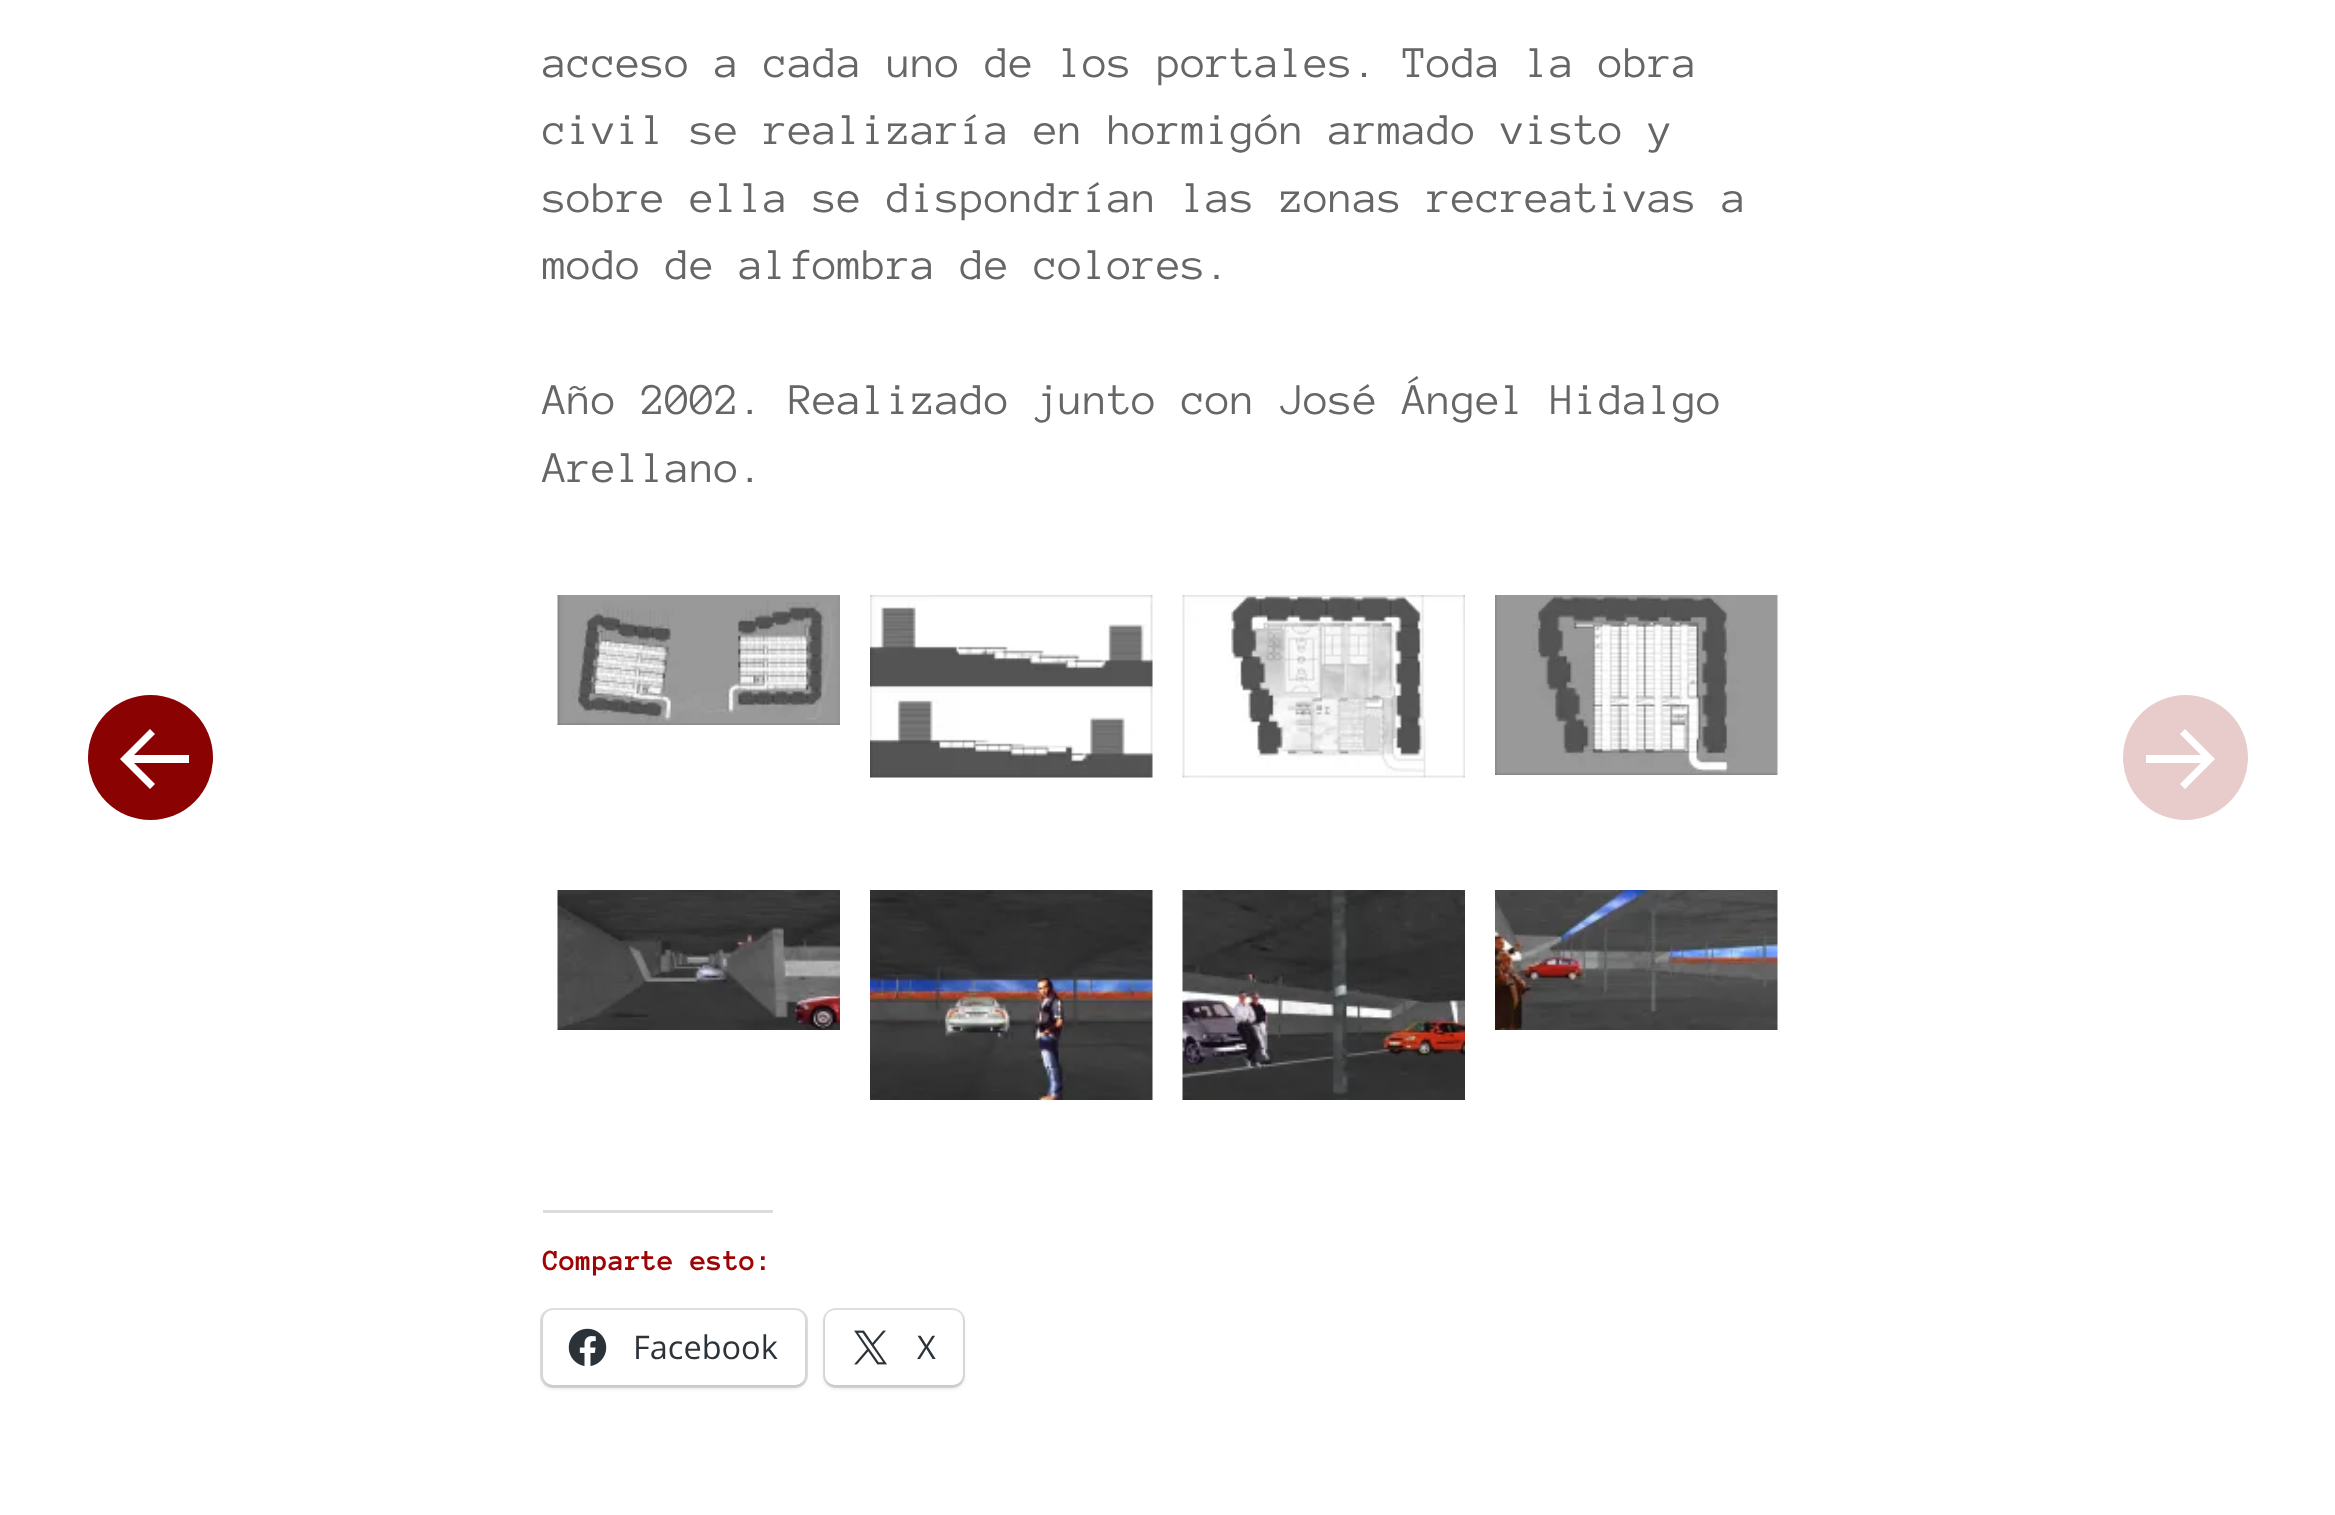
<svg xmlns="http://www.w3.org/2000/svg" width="2335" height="1515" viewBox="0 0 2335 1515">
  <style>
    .t1 { font: 45px Anonymous Pro; fill: #666; }
    .t2 { font: bold 30px Anonymous Pro; fill: #9f0404; }
    .t3 { font: 32.5px Open Sans; fill: #2c3338; }
  </style>
  <rect width="100%" height="100%" fill="#fff"/>
  <text x="543" y="77" class="t1">acceso a cada uno de los portales. Toda la obra</text>
  <text x="543" y="144" class="t1">civil se realizaría en hormigón armado visto y</text>
  <text x="543" y="212" class="t1">sobre ella se dispondrían las zonas recreativas a</text>
  <text x="543" y="279" class="t1">modo de alfombra de colores.</text>
  <text x="543" y="414" class="t1">Año 2002. Realizado junto con José Ángel Hidalgo</text>
  <text x="543" y="482" class="t1">Arellano.</text>
  <image x="557" y="595" width="283" height="130" href="images/1.png"/>
  <image x="870" y="595" width="283" height="183" href="images/2.png"/>
  <image x="1182" y="595" width="283" height="183" href="images/3.png"/>
  <image x="1495" y="595" width="283" height="180" href="images/4.png"/>
  <image x="557" y="890" width="283" height="140" href="images/5.png"/>
  <image x="870" y="890" width="283" height="210" href="images/6.png"/>
  <image x="1182" y="890" width="283" height="210" href="images/7.png"/>
  <image x="1495" y="890" width="283" height="140" href="images/8.png"/>
  <rect x="543" y="1210" width="230" height="3" fill="#dcdcde"/>
  <text x="543" y="1270" class="t2">Comparte esto:</text>
  <rect x="541.5" y="1309.5" width="265" height="77" rx="11.5" fill="none" stroke="#e0e0e0" stroke-width="3"/>
  <rect x="543" y="1313" width="262" height="75" rx="10" fill="#0000001f" filter="blur(2.5px)"/>
  <rect x="543" y="1310" width="262" height="75" rx="10" fill="#fff"/>
  <image x="568" y="1328" width="39" height="38" href="images/9.png"/>
  <text x="633" y="1359" class="t3">Facebook</text>
  <rect x="824.5" y="1309.5" width="139" height="77" rx="11.5" fill="none" stroke="#e0e0e0" stroke-width="3"/>
  <rect x="825" y="1313" width="138" height="75" rx="10" fill="#0000001f" filter="blur(2.5px)"/>
  <rect x="825" y="1310" width="138" height="75" rx="10" fill="#fff"/>
  <image x="854" y="1330" width="33" height="35" href="images/10.png"/>
  <text x="917" y="1359" class="t3">X</text>
  <circle cx="150.5" cy="757.5" r="62.5" fill="#8b0202"/>
  <path d="M120 759L150 789L155 784L134 763H189V755H134L155 734L150 729Z" fill="#fff"/>
  <circle cx="2185.5" cy="757.5" r="62.5" fill="#e8cccc"/>
  <path d="M2215 759L2185 789L2180 784L2201 763H2146V755H2201L2180 734L2185 729Z" fill="#fff"/>
</svg>
